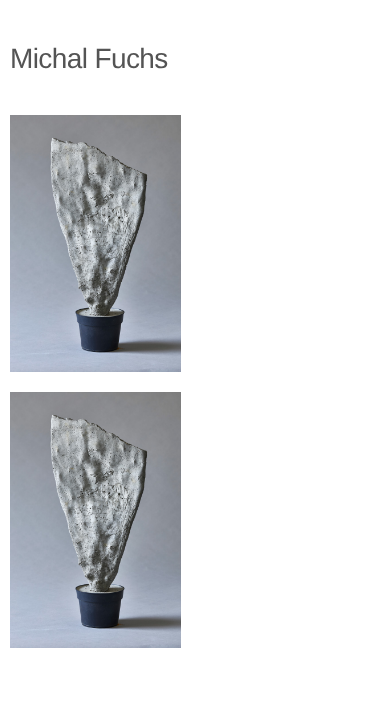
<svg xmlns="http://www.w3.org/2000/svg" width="382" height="708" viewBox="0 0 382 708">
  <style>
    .t1 { font: 28px Liberation Sans; letter-spacing: -0.6px; fill: #545454; }
  </style>
  <rect width="100%" height="100%" fill="#fff"/>
  <text x="10" y="68" class="t1">Michal Fuchs</text>
  <image x="10" y="115" width="171" height="257" href="images/1.png"/>
  <image x="10" y="392" width="171" height="256" href="images/2.png"/>
</svg>
